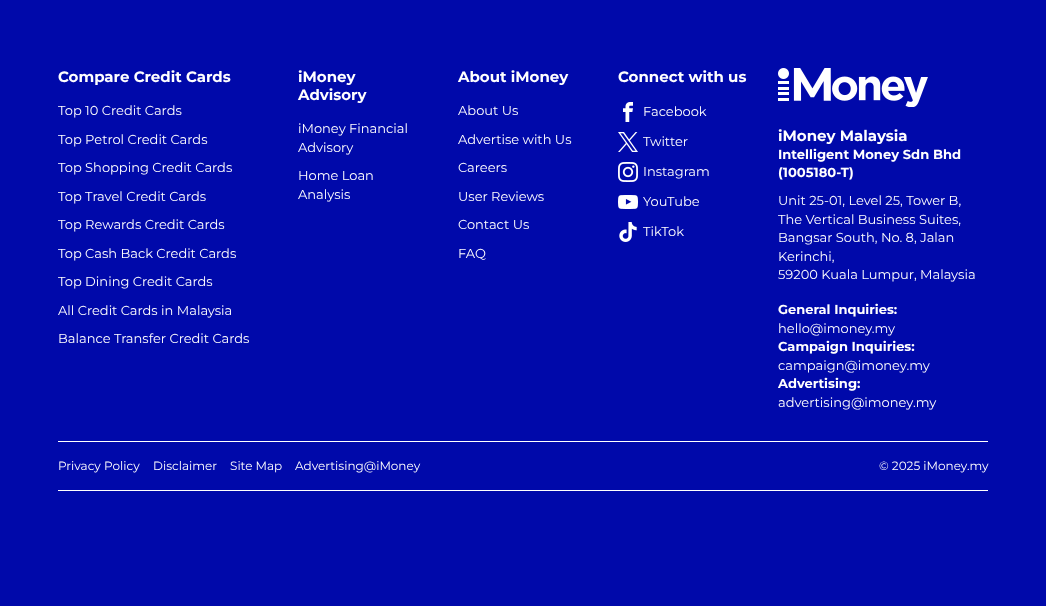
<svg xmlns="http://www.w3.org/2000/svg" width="1046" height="606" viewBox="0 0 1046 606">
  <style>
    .t1 { font: bold 15px Montserrat; fill: #fff; }
    .t2 { font: 13px Montserrat; fill: #fff; }
    .t3 { font: bold 13.1px Montserrat; fill: #fff; }
    .t4 { font: bold 13px Montserrat; fill: #fff; }
    .t5 { font: 12px Montserrat; fill: #fff; }
  </style>
  <rect width="100%" height="100%" fill="#0009aa"/>
  <text x="58" y="82" class="t1">Compare Credit Cards</text>
  <text x="58" y="115" class="t2">Top 10 Credit Cards</text>
  <text x="58" y="144" class="t2">Top Petrol Credit Cards</text>
  <text x="58" y="172" class="t2">Top Shopping Credit Cards</text>
  <text x="58" y="201" class="t2">Top Travel Credit Cards</text>
  <text x="58" y="229" class="t2">Top Rewards Credit Cards</text>
  <text x="58" y="258" class="t2">Top Cash Back Credit Cards</text>
  <text x="58" y="286" class="t2">Top Dining Credit Cards</text>
  <text x="58" y="315" class="t2">All Credit Cards in Malaysia</text>
  <text x="58" y="343" class="t2">Balance Transfer Credit Cards</text>
  <text x="298" y="82" class="t1">iMoney</text>
  <text x="298" y="100" class="t1">Advisory</text>
  <text x="298" y="133" class="t2">iMoney Financial</text>
  <text x="298" y="152" class="t2">Advisory</text>
  <text x="298" y="180" class="t2">Home Loan</text>
  <text x="298" y="199" class="t2">Analysis</text>
  <text x="458" y="82" class="t1">About iMoney</text>
  <text x="458" y="115" class="t2">About Us</text>
  <text x="458" y="144" class="t2">Advertise with Us</text>
  <text x="458" y="172" class="t2">Careers</text>
  <text x="458" y="201" class="t2">User Reviews</text>
  <text x="458" y="229" class="t2">Contact Us</text>
  <text x="458" y="258" class="t2">FAQ</text>
  <text x="618" y="82" class="t1">Connect with us</text>
  <image x="623" y="102" width="10" height="20" href="images/1.png"/>
  <text x="643" y="116" class="t2">Facebook</text>
  <image x="618" y="132" width="20" height="20" href="images/2.png"/>
  <text x="643" y="146" class="t2">Twitter</text>
  <image x="618" y="162" width="20" height="20" href="images/3.png"/>
  <text x="643" y="176" class="t2">Instagram</text>
  <image x="618" y="195" width="20" height="14" href="images/4.png"/>
  <text x="643" y="206" class="t2">YouTube</text>
  <image x="619" y="222" width="18" height="20" href="images/5.png"/>
  <text x="643" y="236" class="t2">TikTok</text>
  <image x="778" y="68" width="150" height="39" href="images/6.png"/>
  <text x="778" y="141" class="t1">iMoney Malaysia</text>
  <text x="778" y="159" class="t3">Intelligent Money Sdn Bhd</text>
  <text x="778" y="177" class="t3">(1005180-T)</text>
  <text x="778" y="205" class="t2">Unit 25-01, Level 25, Tower B,</text>
  <text x="778" y="224" class="t2">The Vertical Business Suites,</text>
  <text x="778" y="242" class="t2">Bangsar South, No. 8, Jalan</text>
  <text x="778" y="261" class="t2">Kerinchi,</text>
  <text x="778" y="279" class="t2">59200 Kuala Lumpur, Malaysia</text>
  <text x="778" y="314" class="t4">General Inquiries:</text>
  <text x="778" y="333" class="t2">hello@imoney.my</text>
  <text x="778" y="351" class="t4">Campaign Inquiries:</text>
  <text x="778" y="370" class="t2">campaign@imoney.my</text>
  <text x="778" y="388" class="t4">Advertising:</text>
  <text x="778" y="407" class="t2">advertising@imoney.my</text>
  <rect x="58" y="441" width="930" height="1" fill="#fff"/>
  <rect x="58" y="490" width="930" height="1" fill="#fff"/>
  <text x="58" y="470" class="t5">Privacy Policy</text>
  <text x="153" y="470" class="t5">Disclaimer</text>
  <text x="230" y="470" class="t5">Site Map</text>
  <text x="295" y="470" class="t5">Advertising@iMoney</text>
  <text x="879" y="470" class="t5">© 2025 iMoney.my</text>
</svg>
